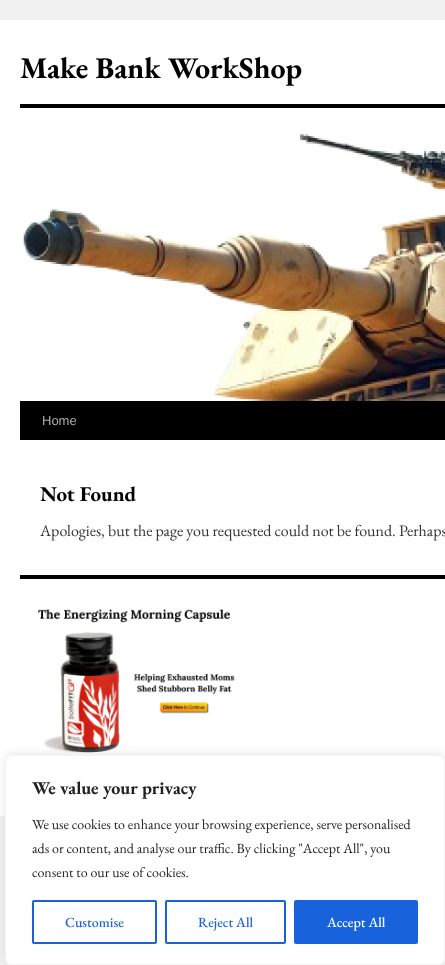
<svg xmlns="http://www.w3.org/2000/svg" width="445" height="965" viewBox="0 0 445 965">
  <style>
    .t1 { font: bold 30px EB Garamond; fill: #000; }
    .t2 { font: 13px Liberation Sans; fill: #aaa; }
    .t3 { font: bold 21px EB Garamond; fill: #000; }
    .t4 { font: 16px EB Garamond; fill: #333; }
    .t5 { font: bold 18px EB Garamond; fill: #212121; }
    .t6 { font: 14px EB Garamond; fill: #212121; }
    .t7 { font: 500 14px EB Garamond; fill: #1863dc; }
    .t8 { font: 500 14px EB Garamond; fill: #fff; }
  </style>
  <rect width="100%" height="100%" fill="#f1f1f1"/>
  <rect x="0" y="20" width="445" height="796" fill="#fff"/>
  <text x="20" y="78" class="t1">Make Bank WorkShop</text>
  <rect x="20" y="104" width="425" height="4" fill="#000"/>
  <rect x="20" y="401" width="425" height="39" fill="#000"/>
  <image x="23" y="134" width="422" height="267" href="images/1.png"/>
  <text x="42" y="425" class="t2">Home</text>
  <text x="40" y="501" class="t3">Not Found</text>
  <text x="40" y="536" class="t4">Apologies, but the page you requested could not be found. Perhaps</text>
  <rect x="20" y="575" width="425" height="4" fill="#000"/>
  <image x="38" y="609" width="197" height="144" href="images/2.png"/>
  <rect x="5" y="754" width="440" height="210" rx="6" fill="#acabab4d" filter="blur(5px)"/>
  <rect x="5.5" y="755.5" width="439" height="209" rx="5.5" fill="#fff" stroke="#f4f4f4"/>
  <text x="32" y="794" class="t5">We value your privacy</text>
  <text x="32" y="829" class="t6">We use cookies to enhance your browsing experience, serve personalised</text>
  <text x="32" y="853" class="t6">ads or content, and analyse our traffic. By clicking "Accept All", you</text>
  <text x="32" y="877" class="t6">consent to our use of cookies.</text>
  <rect x="33" y="901" width="123" height="42" rx="1" fill="none" stroke="#1863dc" stroke-width="2"/>
  <text x="65" y="927" class="t7">Customise</text>
  <rect x="166" y="901" width="119" height="42" rx="1" fill="none" stroke="#1863dc" stroke-width="2"/>
  <text x="198" y="927" class="t7">Reject All</text>
  <rect x="295" y="901" width="122" height="42" rx="1" fill="#1863dc" stroke="#1863dc" stroke-width="2"/>
  <text x="327" y="927" class="t8">Accept All</text>
</svg>
